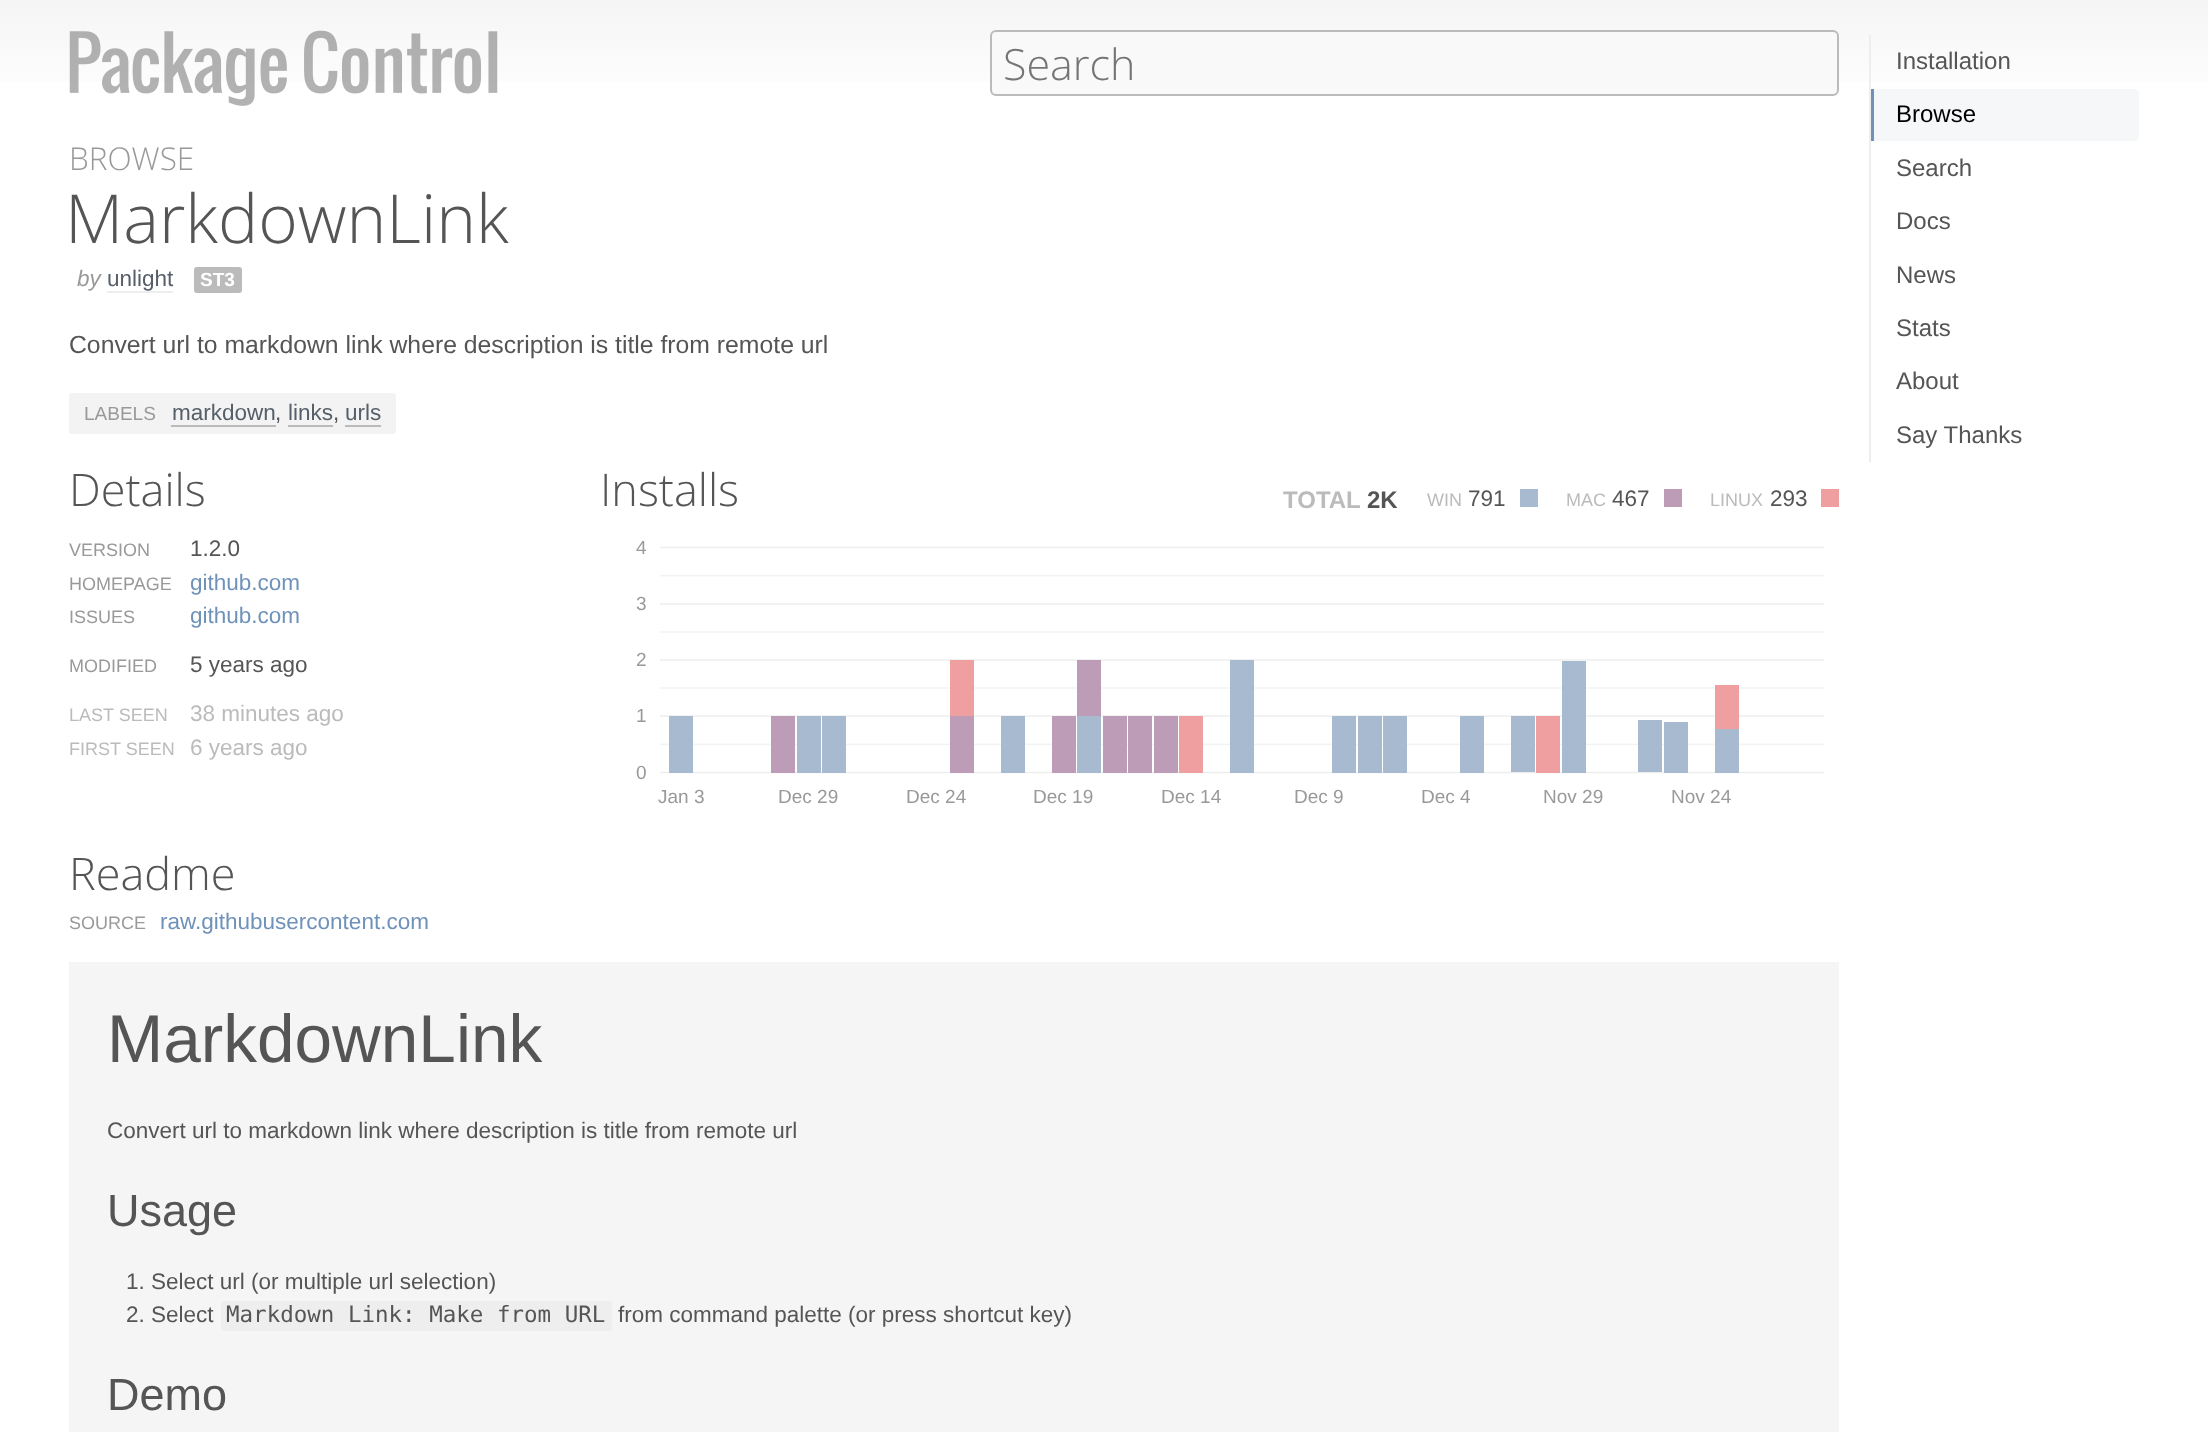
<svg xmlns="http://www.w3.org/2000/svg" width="2208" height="1432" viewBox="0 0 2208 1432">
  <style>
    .t1 { font: 300 43px Open Sans; fill: #757575; }
    .t2 { font: 24px Liberation Sans; fill: #555; }
    .t3 { font: 24px Liberation Sans; fill: #000; }
    .t4 { font: 300 31.5px Open Sans; fill: #999; }
    .t5 { font: 300 67.5px Open Sans; fill: #555; }
    .t6 { font: italic 22.5px Liberation Sans; fill: #999; }
    .t7 { font: 22.5px Liberation Sans; fill: #555e69; }
    .t8 { font: bold 19px Liberation Sans; fill: #fff; }
    .t9 { font: 24.75px Liberation Sans; fill: #555; }
    .t10 { font: 19px Liberation Sans; fill: #999; }
    .t11 { font: 22.5px Liberation Sans; fill: #555; }
    .t12 { font: 300 45px Open Sans; fill: #555; }
    .t13 { font: 18px Liberation Sans; fill: #999; }
    .t14 { font: 22.5px Liberation Sans; fill: #6f92ba; }
    .t15 { font: 18px Liberation Sans; fill: #bbb; }
    .t16 { font: 22.5px Liberation Sans; fill: #bbb; }
    .t17 { font: bold 24px Liberation Sans; fill: #bbb; }
    .t18 { font: bold 24px Liberation Sans; fill: #555; }
    .t19 { font: 67.5px Liberation Sans; fill: #555; }
    .t20 { font: 45px Liberation Sans; fill: #555; }
    .t21 { font: 22.5px DejaVu Sans Mono; fill: #555; }
  </style>
  <defs>
    <linearGradient id="g1" gradientUnits="userSpaceOnUse" x1="1104" y1="0" x2="1104" y2="110"><stop offset="0" stop-color="#f5f5f5"/><stop offset="1" stop-color="#fff"/></linearGradient>
  </defs>
  <rect width="100%" height="100%" fill="#fff"/>
  <rect x="0" y="0" width="2208" height="82" fill="url(#g1)"/>
  <image x="69" y="30" width="429" height="76" href="images/1.png"/>
  <rect x="991" y="31" width="847" height="64" rx="5" fill="#f9f9f9" stroke="#bbb" stroke-width="2"/>
  <text x="1003" y="80" class="t1">Search</text>
  <rect x="1869" y="35" width="2" height="427" fill="#eee"/>
  <text x="1896" y="69" class="t2">Installation</text>
  <path d="M1871 89H2134C2137 89 2139 91 2139 94V136C2139 139 2137 141 2134 141H1871Z" fill="#f5f7f8"/>
  <rect x="1871" y="89" width="3" height="52" fill="#6f92ba"/>
  <text x="1896" y="122" class="t3">Browse</text>
  <text x="1896" y="176" class="t2">Search</text>
  <text x="1896" y="229" class="t2">Docs</text>
  <text x="1896" y="283" class="t2">News</text>
  <text x="1896" y="336" class="t2">Stats</text>
  <text x="1896" y="389" class="t2">About</text>
  <text x="1896" y="443" class="t2">Say Thanks</text>
  <text x="69" y="170" class="t4">BROWSE</text>
  <text x="65" y="243" class="t5">MarkdownLink</text>
  <text x="77" y="286" class="t6">by</text>
  <text x="107" y="286" class="t7">unlight</text>
  <rect x="107" y="291" width="66" height="2" fill="#eee"/>
  <rect x="194" y="267" width="48" height="26" rx="3" fill="#bbb"/>
  <text x="200" y="286" class="t8">ST3</text>
  <text x="69" y="353" class="t9">Convert url to markdown link where description is title from remote url</text>
  <rect x="69" y="393" width="327" height="41" rx="3" fill="#f3f3f3"/>
  <text x="84" y="420" class="t10">LABELS</text>
  <text x="172" y="420" class="t7">markdown</text>
  <rect x="171" y="425" width="105" height="2" fill="#bbb"/>
  <text x="275" y="420" class="t11">,</text>
  <text x="288" y="420" class="t7">links</text>
  <rect x="288" y="425" width="45" height="2" fill="#bbb"/>
  <text x="333" y="420" class="t11">,</text>
  <text x="345" y="420" class="t7">urls</text>
  <rect x="345" y="425" width="36" height="2" fill="#bbb"/>
  <text x="69" y="506" class="t12">Details</text>
  <text x="69" y="556" class="t13">VERSION</text>
  <text x="190" y="556" class="t11">1.2.0</text>
  <text x="69" y="590" class="t13">HOMEPAGE</text>
  <text x="190" y="590" class="t14">github.com</text>
  <text x="69" y="623" class="t13">ISSUES</text>
  <text x="190" y="623" class="t14">github.com</text>
  <text x="69" y="672" class="t13">MODIFIED</text>
  <text x="190" y="672" class="t11">5 years ago</text>
  <text x="69" y="721" class="t15">LAST SEEN</text>
  <text x="190" y="721" class="t16">38 minutes ago</text>
  <text x="69" y="755" class="t15">FIRST SEEN</text>
  <text x="190" y="755" class="t16">6 years ago</text>
  <text x="600" y="506" class="t12">Installs</text>
  <text x="1283" y="508" class="t17">TOTAL</text>
  <text x="1367" y="508" class="t18">2K</text>
  <text x="1427" y="506" class="t15">WIN</text>
  <text x="1468" y="506" class="t11">791</text>
  <rect x="1520" y="489" width="18" height="18" fill="#a8bacf"/>
  <text x="1566" y="506" class="t15">MAC</text>
  <text x="1612" y="506" class="t11">467</text>
  <rect x="1664" y="489" width="18" height="18" fill="#bd9cb7"/>
  <text x="1710" y="506" class="t15">LINUX</text>
  <text x="1770" y="506" class="t11">293</text>
  <rect x="1821" y="489" width="18" height="18" fill="#ef9f9f"/>
  <text x="636" y="554" class="t10">4</text>
  <image x="660" y="546" width="1164" height="228" href="images/2.png"/>
  <text x="636" y="610" class="t10">3</text>
  <text x="636" y="666" class="t10">2</text>
  <text x="636" y="722" class="t10">1</text>
  <text x="636" y="779" class="t10">0</text>
  <text x="658" y="803" class="t10">Jan 3</text>
  <text x="778" y="803" class="t10">Dec 29</text>
  <text x="906" y="803" class="t10">Dec 24</text>
  <text x="1033" y="803" class="t10">Dec 19</text>
  <text x="1161" y="803" class="t10">Dec 14</text>
  <text x="1294" y="803" class="t10">Dec 9</text>
  <text x="1421" y="803" class="t10">Dec 4</text>
  <text x="1543" y="803" class="t10">Nov 29</text>
  <text x="1671" y="803" class="t10">Nov 24</text>
  <text x="69" y="890" class="t12">Readme</text>
  <text x="69" y="929" class="t13">SOURCE</text>
  <text x="160" y="929" class="t14">raw.githubusercontent.com</text>
  <rect x="69" y="962" width="1770" height="470" fill="#f5f5f5"/>
  <text x="107" y="1062" class="t19">MarkdownLink</text>
  <text x="107" y="1138" class="t11">Convert url to markdown link where description is title from remote url</text>
  <text x="107" y="1226" class="t20">Usage</text>
  <text x="126" y="1289" class="t11">1. Select url (or multiple url selection)</text>
  <text x="126" y="1322" class="t11">2. Select</text>
  <rect x="221" y="1301" width="391" height="30" rx="3" fill="#eee"/>
  <text x="226" y="1322" class="t21">Markdown Link: Make from URL</text>
  <text x="618" y="1322" class="t11">from command palette (or press shortcut key)</text>
  <text x="107" y="1410" class="t20">Demo</text>
</svg>
